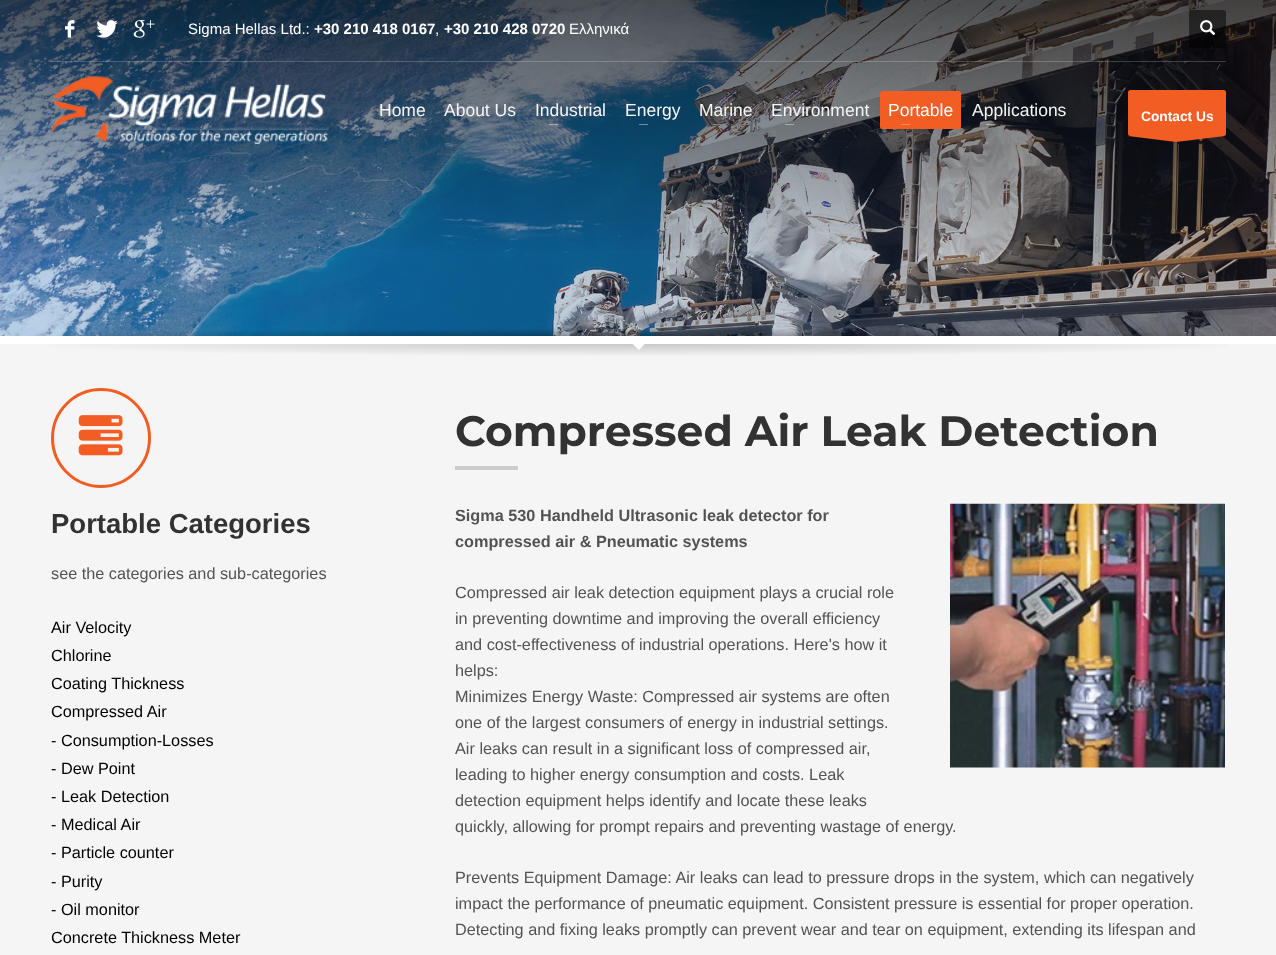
<svg xmlns="http://www.w3.org/2000/svg" width="1276" height="955" viewBox="0 0 1276 955">
  <style>
    .t1 { font: 15px Liberation Sans; fill: #fff; }
    .t2 { font: bold 15px Liberation Sans; fill: #fff; }
    .t3 { font: 17.5px Liberation Sans; fill: #f5f5f5; }
    .t4 { font: 17.5px Liberation Sans; fill: #fff; }
    .t5 { font: bold 13.75px Liberation Sans; fill: #fff; }
    .t6 { font: bold 27.5px Liberation Sans; fill: #323232; }
    .t7 { font: 16.25px Liberation Sans; fill: #535353; }
    .t8 { font: 16.25px Liberation Sans; fill: #000; }
    .t9 { font: bold 42.5px Montserrat; fill: #323232; }
    .t10 { font: bold 16.25px Liberation Sans; fill: #535353; }
  </style>
  <defs>
    <linearGradient id="g1" gradientUnits="userSpaceOnUse" x1="0" y1="172" x2="1276" y2="172"><stop offset="0" stop-color="#1e73be" stop-opacity="0.3"/><stop offset="1" stop-color="#353535" stop-opacity="0.3"/></linearGradient>
    <linearGradient id="g2" gradientUnits="userSpaceOnUse" x1="638" y1="0" x2="638" y2="259"><stop offset="0" stop-color="#000" stop-opacity="0.6"/><stop offset="1" stop-color="#000" stop-opacity="0"/></linearGradient>
    <radialGradient id="g3" gradientUnits="userSpaceOnUse" cx="0" cy="0" r="1" gradientTransform="matrix(902 0 0 11 638 336)"><stop offset="0" stop-color="#000" stop-opacity="0.3"/><stop offset="0.7" stop-color="#000" stop-opacity="0"/></radialGradient>
    <radialGradient id="g4" gradientUnits="userSpaceOnUse" cx="0" cy="0" r="1" gradientTransform="matrix(902 0 0 18 638 344)"><stop offset="0" stop-color="#c9c9c9"/><stop offset="0.7" stop-color="#f5f5f5"/></radialGradient>
  </defs>
  <rect width="100%" height="100%" fill="#f5f5f5"/>
  <image x="0" y="0" width="1276" height="336" href="images/7.png"/>
  <rect x="0" y="0" width="1276" height="336" fill="url(#g1)"/>
  <rect x="0" y="0" width="1276" height="250" fill="url(#g2)"/>
  <image x="65" y="20" width="10" height="18" href="images/1.png"/>
  <image x="96" y="20" width="22" height="18" href="images/2.png"/>
  <image x="133" y="20" width="22" height="18" href="images/3.png"/>
  <text x="188" y="34" class="t1">Sigma Hellas Ltd.:</text>
  <text x="314" y="34" class="t2">+30 210 418 0167</text>
  <text x="435" y="34" class="t1">,</text>
  <text x="444" y="34" class="t2">+30 210 428 0720</text>
  <text x="569" y="34" class="t1">Ελληνικά</text>
  <rect x="1189" y="10" width="37" height="38" rx="2.5" fill="#00000080"/>
  <image x="1200" y="20" width="16" height="15" href="images/4.png"/>
  <rect x="51" y="61" width="1175" height="1" fill="#ffffff33"/>
  <image x="0" y="121" width="26" height="39" href="images/5.png"/>
  <image x="51" y="76" width="278" height="68" href="images/6.png"/>
  <text x="379" y="116" class="t3">Home</text>
  <text x="444" y="116" class="t3">About Us</text>
  <text x="535" y="116" class="t3">Industrial</text>
  <rect x="549" y="124" width="9" height="1" fill="#ffffff66"/>
  <text x="625" y="116" class="t3">Energy</text>
  <rect x="639" y="124" width="9" height="1" fill="#6b8da2"/>
  <text x="699" y="116" class="t3">Marine</text>
  <rect x="713" y="124" width="8" height="1" fill="#ffffff66"/>
  <text x="771" y="116" class="t3">Environment</text>
  <rect x="785" y="124" width="9" height="1" fill="#ffffff66"/>
  <rect x="880" y="91" width="81" height="38" rx="2.5" fill="#f25d23"/>
  <text x="888" y="116" class="t4">Portable</text>
  <rect x="901" y="124" width="9" height="1" fill="#f68a61"/>
  <text x="972" y="116" class="t3">Applications</text>
  <rect x="986" y="124" width="9" height="1" fill="#ffffff66"/>
  <rect x="1128" y="90" width="98" height="46" rx="2.5" fill="#f25d23"/>
  <text x="1141" y="121" class="t5">Contact Us</text>
  <path d="M1225 136L1176 142L1128 136Z" fill="#f25d23" fill-rule="evenodd"/>
  <rect x="56" y="329" width="1164" height="7" fill="url(#g3)"/>
  <rect x="0" y="336" width="1276" height="8" fill="#fff"/>
  <rect x="46" y="344" width="1184" height="12" fill="url(#g4)"/>
  <path d="M631 342.5H646L639 350Z" fill="#fff"/>
  <circle cx="101" cy="438" r="48.5" fill="none" stroke="#f25d23" stroke-width="3"/>
  <image x="78" y="415" width="45" height="41" href="images/8.png"/>
  <text x="51" y="533" class="t6">Portable Categories</text>
  <text x="51" y="579" class="t7">see the categories and sub-categories</text>
  <text x="51" y="633" class="t8">Air Velocity</text>
  <text x="51" y="661" class="t8">Chlorine</text>
  <text x="51" y="689" class="t8">Coating Thickness</text>
  <text x="51" y="717" class="t8">Compressed Air</text>
  <text x="51" y="746" class="t8">- Consumption-Losses</text>
  <text x="51" y="774" class="t8">- Dew Point</text>
  <text x="51" y="802" class="t8">- Leak Detection</text>
  <text x="51" y="830" class="t8">- Medical Air</text>
  <text x="51" y="858" class="t8">- Particle counter</text>
  <text x="51" y="887" class="t8">- Purity</text>
  <text x="51" y="915" class="t8">- Oil monitor</text>
  <text x="51" y="943" class="t8">Concrete Thickness Meter</text>
  <text x="455" y="446" class="t9">Compressed Air Leak Detection</text>
  <rect x="455" y="466" width="63" height="4" fill="#ccc"/>
  <text x="455" y="521" class="t10">Sigma 530 Handheld Ultrasonic leak detector for</text>
  <image x="950" y="503" width="275" height="265" href="images/9.png"/>
  <text x="455" y="547" class="t10">compressed air &amp; Pneumatic systems</text>
  <text x="455" y="598" class="t7">Compressed air leak detection equipment plays a crucial role</text>
  <text x="455" y="624" class="t7">in preventing downtime and improving the overall efficiency</text>
  <text x="455" y="650" class="t7">and cost-effectiveness of industrial operations. Here's how it</text>
  <text x="455" y="676" class="t7">helps:</text>
  <text x="455" y="702" class="t7">Minimizes Energy Waste: Compressed air systems are often</text>
  <text x="455" y="728" class="t7">one of the largest consumers of energy in industrial settings.</text>
  <text x="455" y="754" class="t7">Air leaks can result in a significant loss of compressed air,</text>
  <text x="455" y="780" class="t7">leading to higher energy consumption and costs. Leak</text>
  <text x="455" y="806" class="t7">detection equipment helps identify and locate these leaks</text>
  <text x="455" y="832" class="t7">quickly, allowing for prompt repairs and preventing wastage of energy.</text>
  <text x="455" y="883" class="t7">Prevents Equipment Damage: Air leaks can lead to pressure drops in the system, which can negatively</text>
  <text x="455" y="909" class="t7">impact the performance of pneumatic equipment. Consistent pressure is essential for proper operation.</text>
  <text x="455" y="935" class="t7">Detecting and fixing leaks promptly can prevent wear and tear on equipment, extending its lifespan and</text>
</svg>
